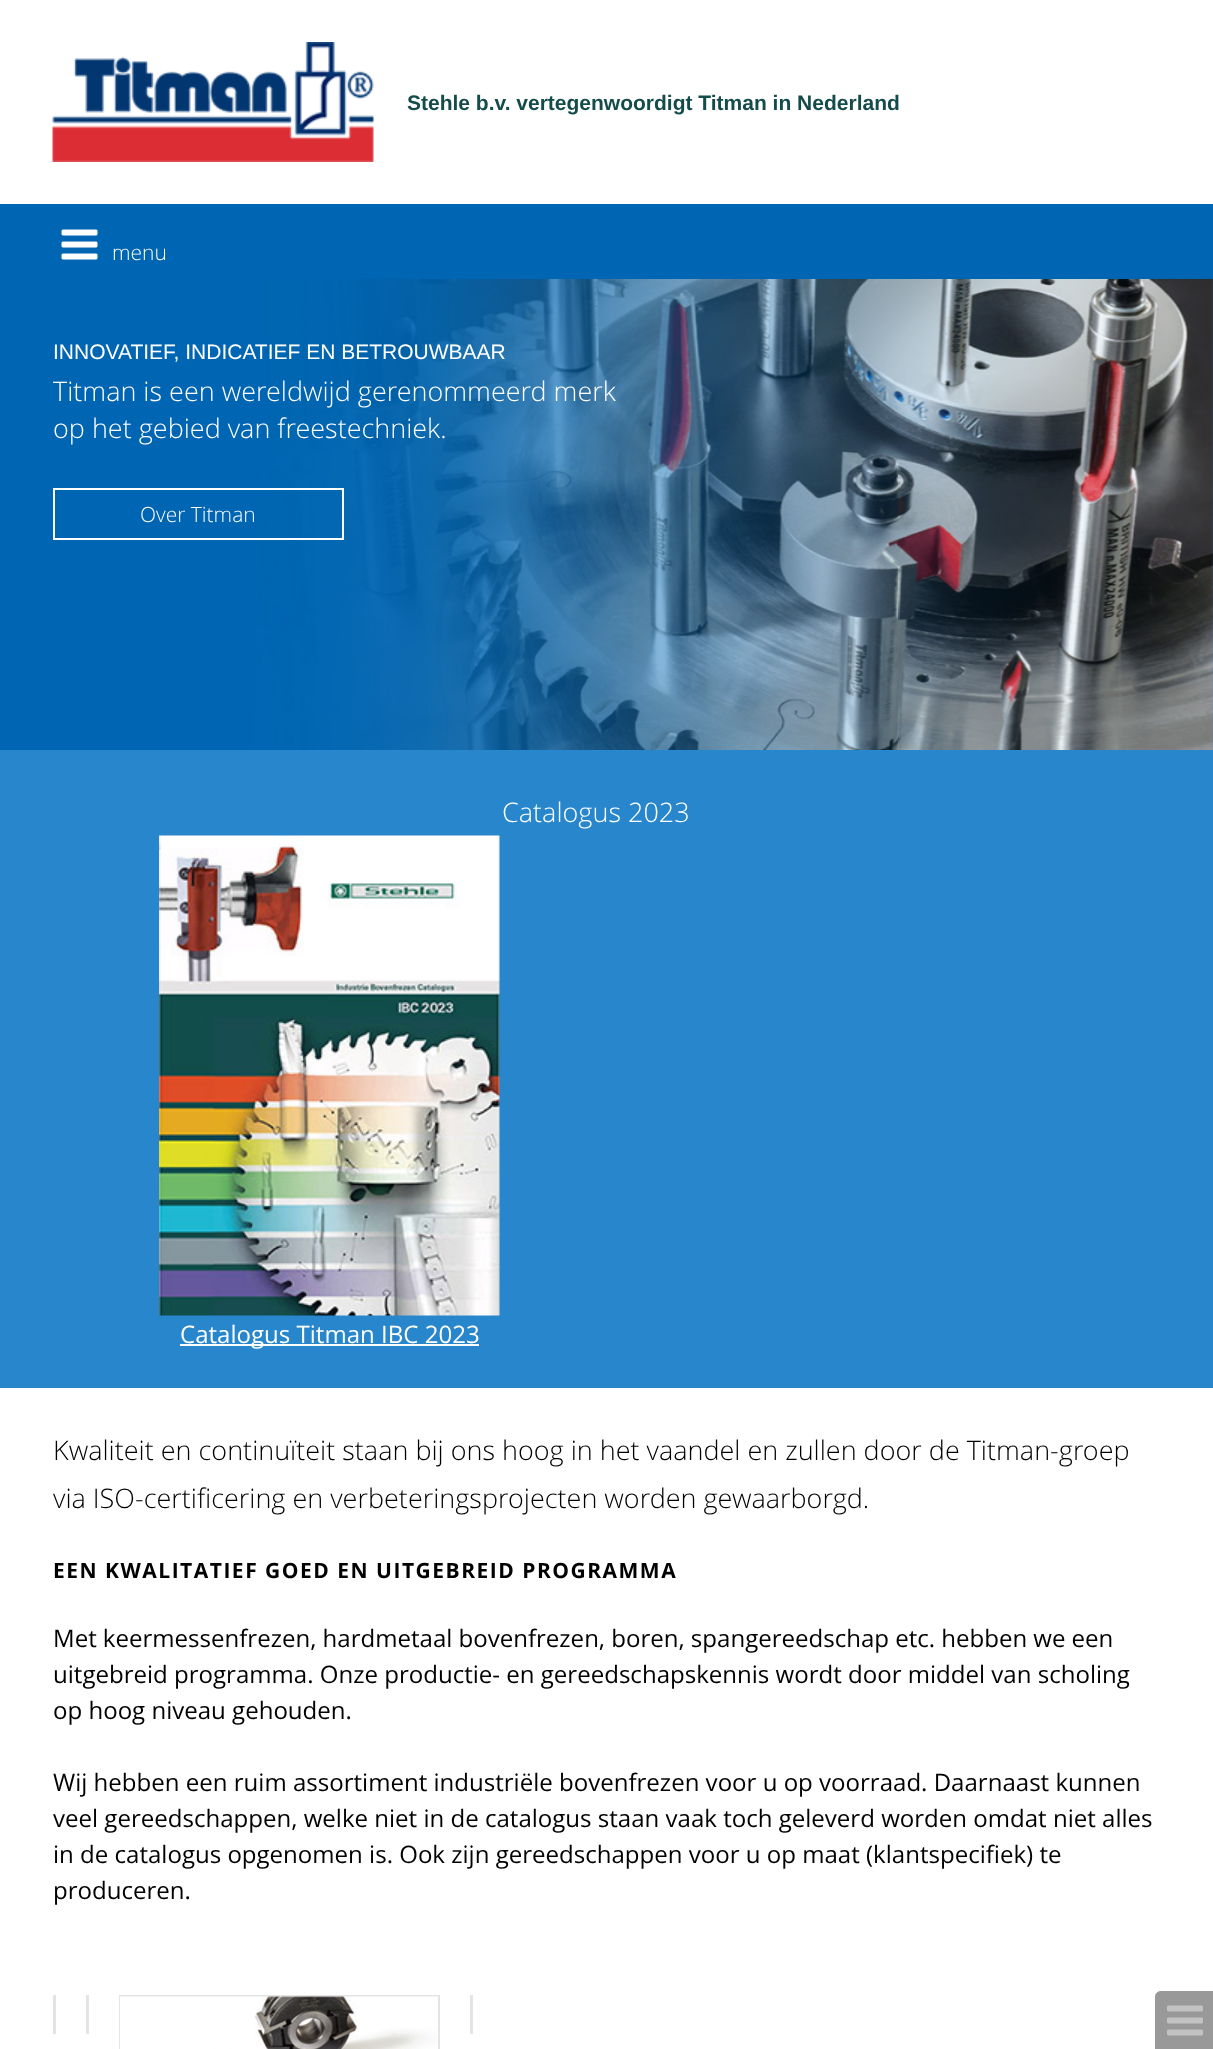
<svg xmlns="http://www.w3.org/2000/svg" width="1213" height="2049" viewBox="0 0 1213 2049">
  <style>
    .t1 { font: bold 21px Liberation Sans; fill: #144c4b; }
    .t2 { font: 300 21px Open Sans; fill: #fff; }
    .t3 { font: 21px Liberation Sans; fill: #fff; }
    .t4 { font: 300 27px Open Sans; fill: #fff; }
    .t5 { font: 24.05px Open Sans; fill: #fff; }
    .t6 { font: 300 27px Open Sans; fill: #000; }
    .t7 { font: bold 21px Open Sans; letter-spacing: 1.5px; fill: #000; }
    .t8 { font: 24.05px Open Sans; fill: #000; }
  </style>
  <rect width="100%" height="100%" fill="#fff"/>
  <rect x="0" y="204" width="1213" height="75" fill="#0066b3"/>
  <image x="52" y="42" width="322" height="120" href="images/1.png"/>
  <text x="407" y="110" class="t1">Stehle b.v. vertegenwoordigt Titman in Nederland</text>
  <image x="61" y="229" width="37" height="31" href="images/2.png"/>
  <text x="112" y="260" class="t2">menu</text>
  <path d="M1161 1991H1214V2049H1155V1997C1155 1993.5 1157.5 1991 1161 1991Z" fill="#999"/>
  <image x="1167" y="2005" width="36" height="31" href="images/3.png"/>
  <rect x="0" y="279" width="1213" height="1109" fill="#2886cd"/>
  <image x="0" y="279" width="1213" height="471" href="images/4.png"/>
  <text x="53" y="359" class="t3">INNOVATIEF, INDICATIEF EN BETROUWBAAR</text>
  <text x="53" y="401" class="t4">Titman is een wereldwijd gerenommeerd merk</text>
  <text x="53" y="438" class="t4">op het gebied van freestechniek.</text>
  <rect x="54" y="489" width="289" height="50" fill="none" stroke="#fff" stroke-width="2"/>
  <text x="140" y="522" class="t2">Over Titman</text>
  <text x="502" y="822" class="t4">Catalogus 2023</text>
  <image x="159" y="835" width="341" height="481" href="images/5.png"/>
  <rect x="180" y="1344" width="299" height="2" fill="#fff"/>
  <text x="180" y="1343" class="t5">Catalogus Titman IBC 2023</text>
  <text x="53" y="1460" class="t6">Kwaliteit en continuïteit staan bij ons hoog in het vaandel en zullen door de Titman-groep</text>
  <text x="53" y="1508" class="t6">via ISO-certificering en verbeteringsprojecten worden gewaarborgd.</text>
  <text x="53" y="1578" class="t7">EEN KWALITATIEF GOED EN UITGEBREID PROGRAMMA</text>
  <text x="53" y="1647" word-spacing="-0.1" class="t8">Met keermessenfrezen, hardmetaal bovenfrezen, boren, spangereedschap etc. hebben we een</text>
  <text x="53" y="1683" class="t8">uitgebreid programma. Onze productie- en gereedschapskennis wordt door middel van scholing</text>
  <text x="53" y="1719" class="t8">op hoog niveau gehouden.</text>
  <text x="53" y="1791" class="t8">Wij hebben een ruim assortiment industriële bovenfrezen voor u op voorraad. Daarnaast kunnen</text>
  <text x="53" y="1827" class="t8">veel gereedschappen, welke niet in de catalogus staan vaak toch geleverd worden omdat niet alles</text>
  <text x="53" y="1863" class="t8">in de catalogus opgenomen is. Ook zijn gereedschappen voor u op maat (klantspecifiek) te</text>
  <text x="53" y="1899" class="t8">produceren.</text>
  <rect x="53" y="1995" width="3" height="39" fill="#e4e4e4"/>
  <rect x="86" y="1995" width="3" height="39" fill="#e4e4e4"/>
  <rect x="120" y="1996" width="319" height="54" fill="none" stroke="#e4e4e4" stroke-width="2"/>
  <image x="120" y="1996" width="318" height="53" href="images/6.png"/>
  <rect x="470" y="1995" width="3" height="39" fill="#e4e4e4"/>
</svg>
